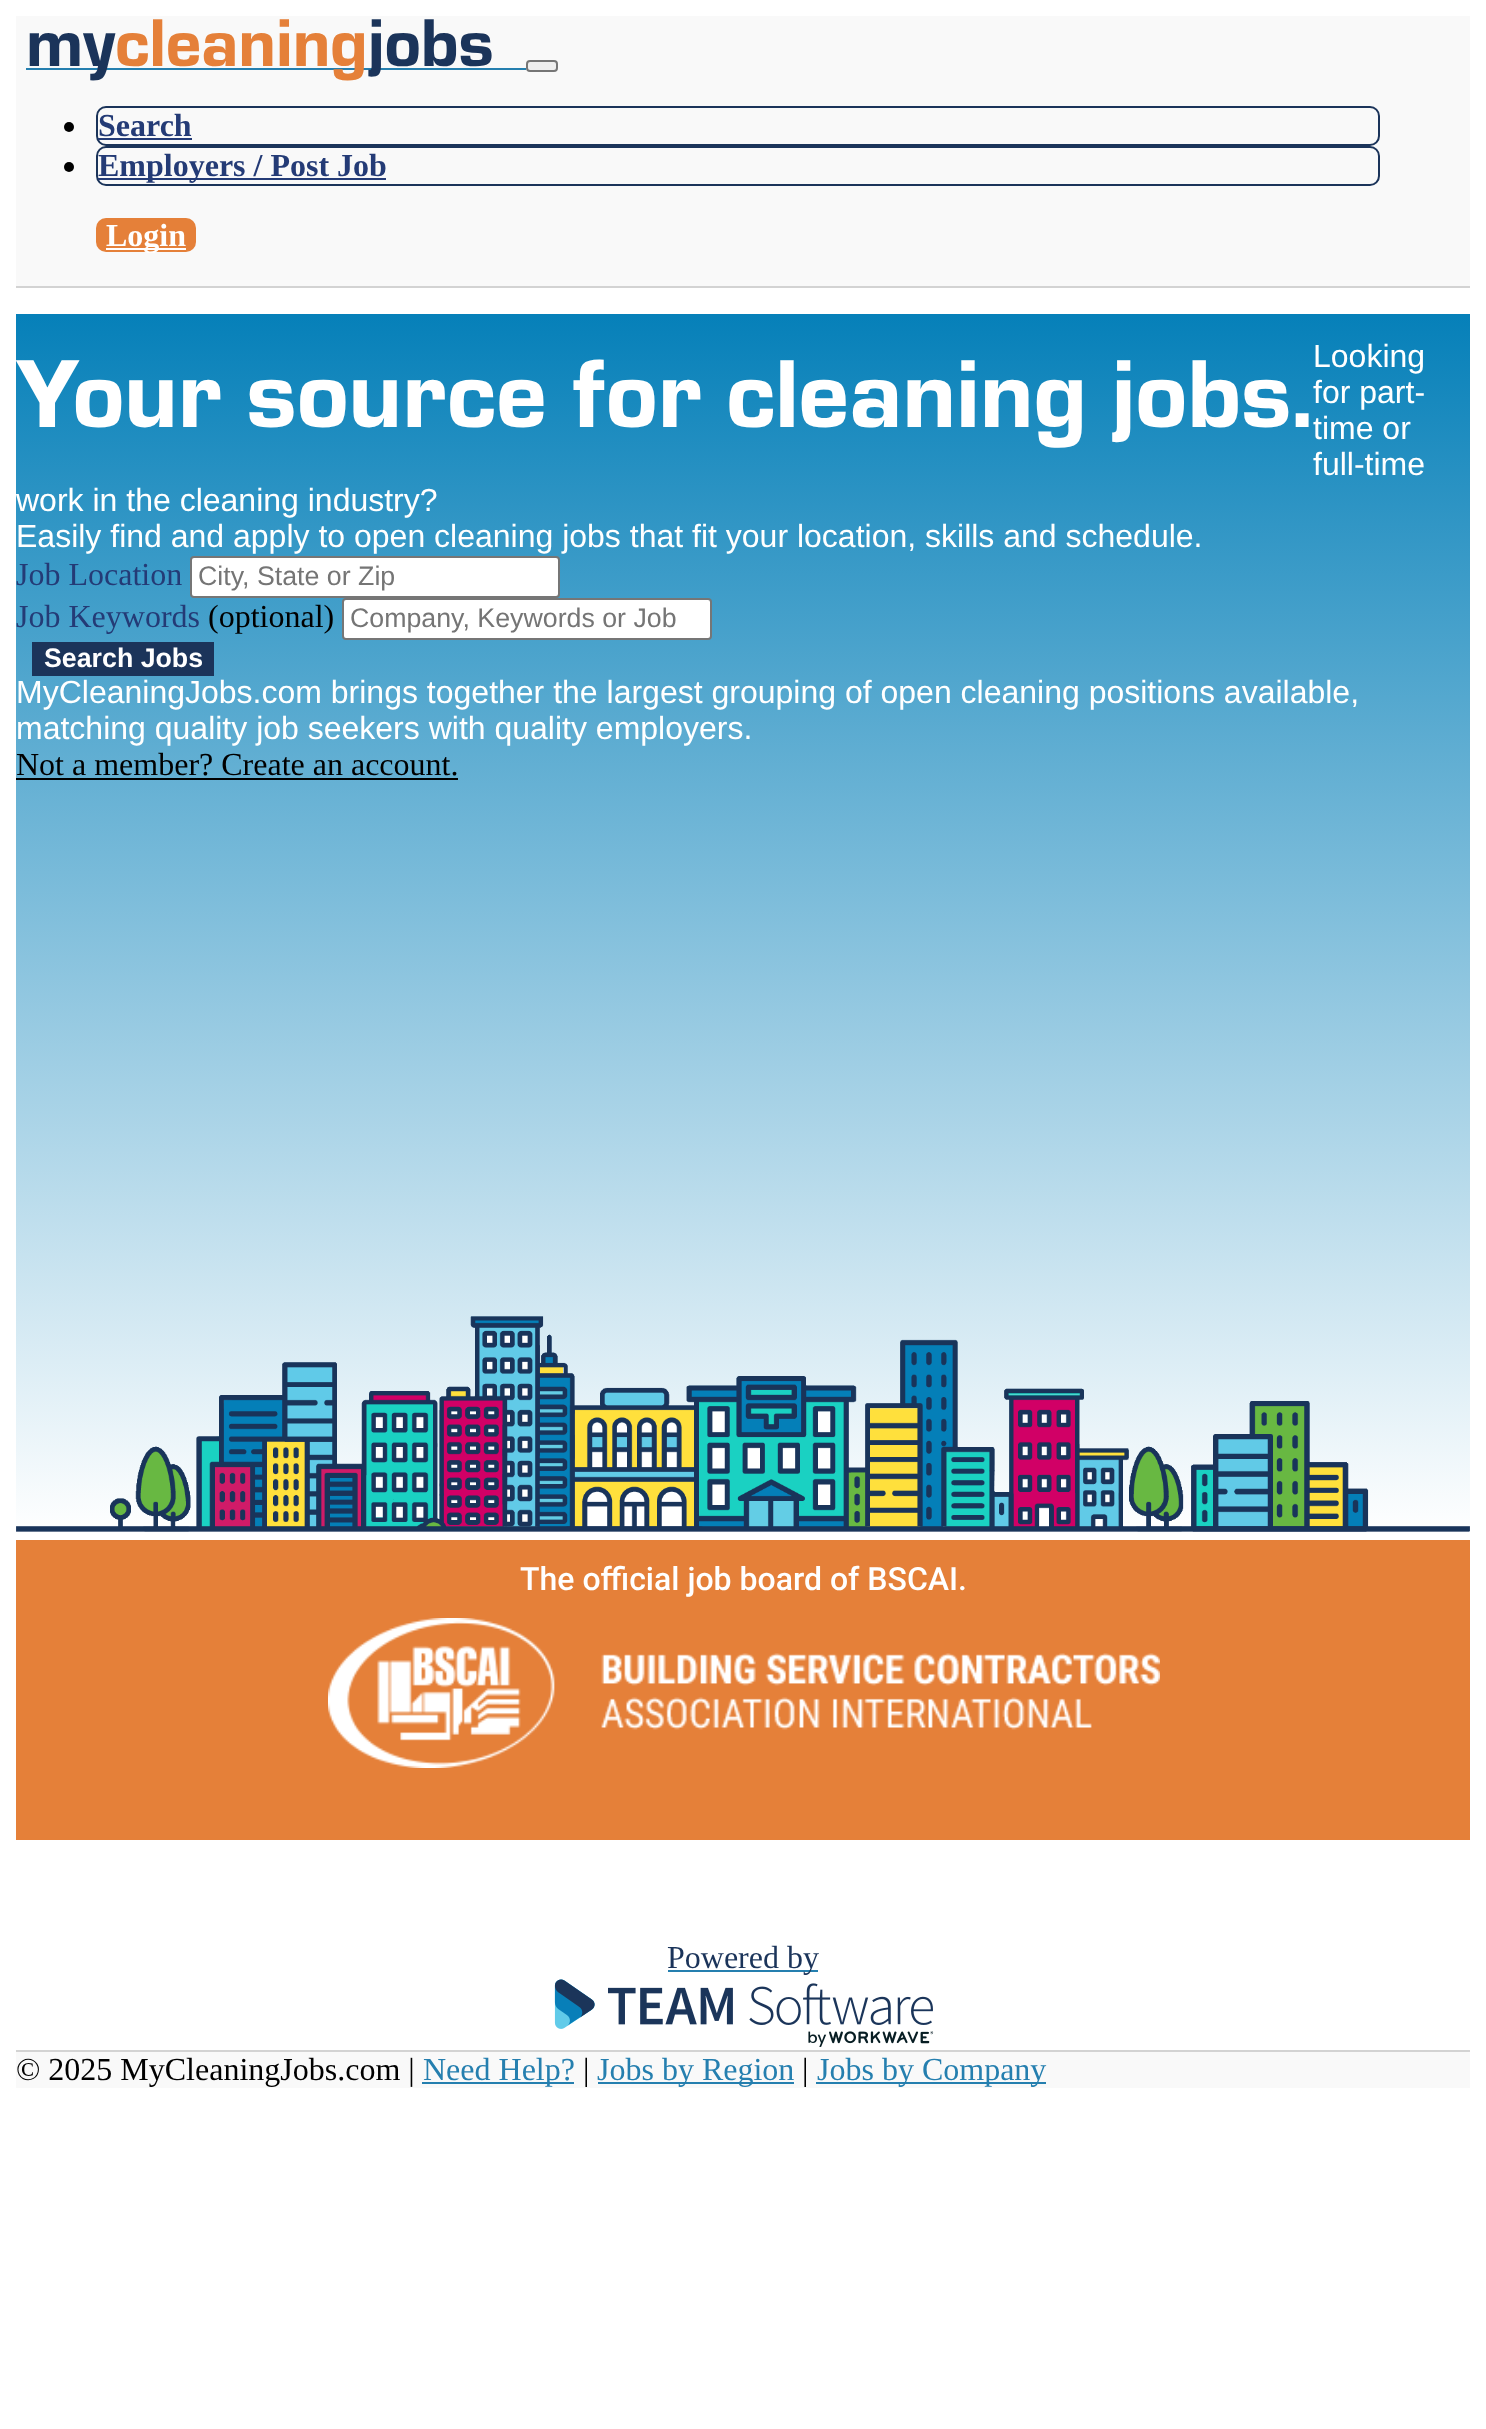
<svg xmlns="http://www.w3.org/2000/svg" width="1486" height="2429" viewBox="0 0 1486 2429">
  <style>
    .t1 { font: 900 70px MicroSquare; fill: #1b345a; }
    .t2 { font: 900 70px MicroSquare; fill: #e58039; }
    .t3 { font: bold 32px Liberation Serif; fill: #243b76; }
    .t4 { font: bold 32px Liberation Serif; fill: #fff; }
    .t5 { font: 900 100px MicroSquare; fill: #fff; }
    .t6 { font: 32px Liberation Sans; fill: #fff; }
    .t7 { font: 32px Liberation Serif; fill: #243b76; }
    .t8 { font: 26.75px Liberation Sans; fill: #757575; }
    .t9 { font: 32px Liberation Serif; fill: #000; }
    .t10 { font: bold 26.75px Liberation Sans; fill: #fff; }
    .t11 { font: 500 32px Roboto; fill: #fff; }
    .t12 { font: 32px Liberation Serif; fill: #1b345a; }
    .t13 { font: 32px Liberation Serif; fill: #257faf; }
  </style>
  <rect width="100%" height="100%" fill="#fff"/>
  <rect x="16" y="16" width="1454" height="270" fill="#f9f9f9"/>
  <rect x="16" y="286" width="1454" height="2" fill="#d3d3d3"/>
  <rect x="26" y="68" width="500" height="2" fill="#257faf"/>
  <text x="26" y="66" class="t1">my</text>
  <text x="115" y="66" class="t2">cleaning</text>
  <text x="368" y="66" class="t1">jobs</text>
  <rect x="527" y="61" width="30" height="10" rx="3" fill="#efefef" stroke="#767676" stroke-width="2"/>
  <rect x="97" y="107" width="1282" height="38" rx="9" fill="none" stroke="#1b345a" stroke-width="2"/>
  <circle cx="69" cy="127" r="5" fill="#000"/>
  <text x="98" y="136" class="t3">Search</text>
  <rect x="98" y="138" width="94" height="2" fill="#243b76"/>
  <rect x="97" y="147" width="1282" height="38" rx="9" fill="none" stroke="#1b345a" stroke-width="2"/>
  <circle cx="69" cy="167" r="5" fill="#000"/>
  <rect x="98" y="178" width="288" height="2" fill="#243b76"/>
  <text x="98" y="176" class="t3">Employers / Post Job</text>
  <rect x="96" y="218" width="100" height="34" rx="10" fill="#e58039"/>
  <rect x="106" y="248" width="80" height="2" fill="#fff"/>
  <text x="106" y="246" class="t4">Login</text>
  <image x="16" y="314" width="1454" height="1218" href="images/1.png"/>
  <text x="16" y="427" class="t5">Your source for cleaning jobs.</text>
  <text x="1313" y="367" class="t6">Looking</text>
  <text x="1313" y="403" class="t6">for part-</text>
  <text x="1313" y="439" class="t6">time or</text>
  <text x="1313" y="475" class="t6">full-time</text>
  <text x="16" y="511" class="t6">work in the cleaning industry?</text>
  <text x="16" y="547" class="t6">Easily find and apply to open cleaning jobs that fit your location, skills and schedule.</text>
  <text x="16" y="585" class="t7">Job Location</text>
  <rect x="191" y="557" width="368" height="40" rx="3" fill="#fff" stroke="#767676" stroke-width="2"/>
  <text x="198" y="585" class="t8">City, State or Zip</text>
  <text x="16" y="627" class="t7">Job Keywords</text>
  <text x="208" y="627" class="t9">(optional)</text>
  <rect x="343" y="599" width="368" height="40" rx="3" fill="#fff" stroke="#767676" stroke-width="2"/>
  <text x="350" y="627" class="t8">Company, Keywords or Job</text>
  <rect x="32" y="642" width="182" height="34" fill="#1b345a"/>
  <text x="44" y="667" class="t10">Search Jobs</text>
  <text x="16" y="703" class="t6">MyCleaningJobs.com brings together the largest grouping of open cleaning positions available,</text>
  <text x="16" y="739" class="t6">matching quality job seekers with quality employers.</text>
  <text x="16" y="775" class="t9">Not a member? Create an account.</text>
  <rect x="16" y="778" width="442" height="2" fill="#000"/>
  <rect x="16" y="1540" width="1454" height="300" fill="#e58039"/>
  <text x="520" y="1590" class="t11">The official job board of BSCAI.</text>
  <image x="328" y="1618" width="832" height="150" href="images/2.png"/>
  <rect x="668" y="1970" width="150" height="2" fill="#257faf"/>
  <text x="667" y="1968" class="t12">Powered by</text>
  <image x="554" y="1979" width="380" height="68" href="images/3.png"/>
  <rect x="16" y="2052" width="1454" height="36" fill="#f9f9f9"/>
  <rect x="16" y="2050" width="1454" height="2" fill="#d3d3d3"/>
  <text x="16" y="2080" class="t9">© 2025 MyCleaningJobs.com |</text>
  <rect x="422" y="2082" width="152" height="2" fill="#257faf"/>
  <text x="423" y="2080" class="t13">Need Help?</text>
  <text x="583" y="2080" class="t9">|</text>
  <rect x="598" y="2082" width="196" height="2" fill="#257faf"/>
  <text x="597" y="2080" class="t13">Jobs by Region</text>
  <text x="802" y="2080" class="t9">|</text>
  <rect x="816" y="2082" width="230" height="2" fill="#257faf"/>
  <text x="817" y="2080" class="t13">Jobs by Company</text>
</svg>
